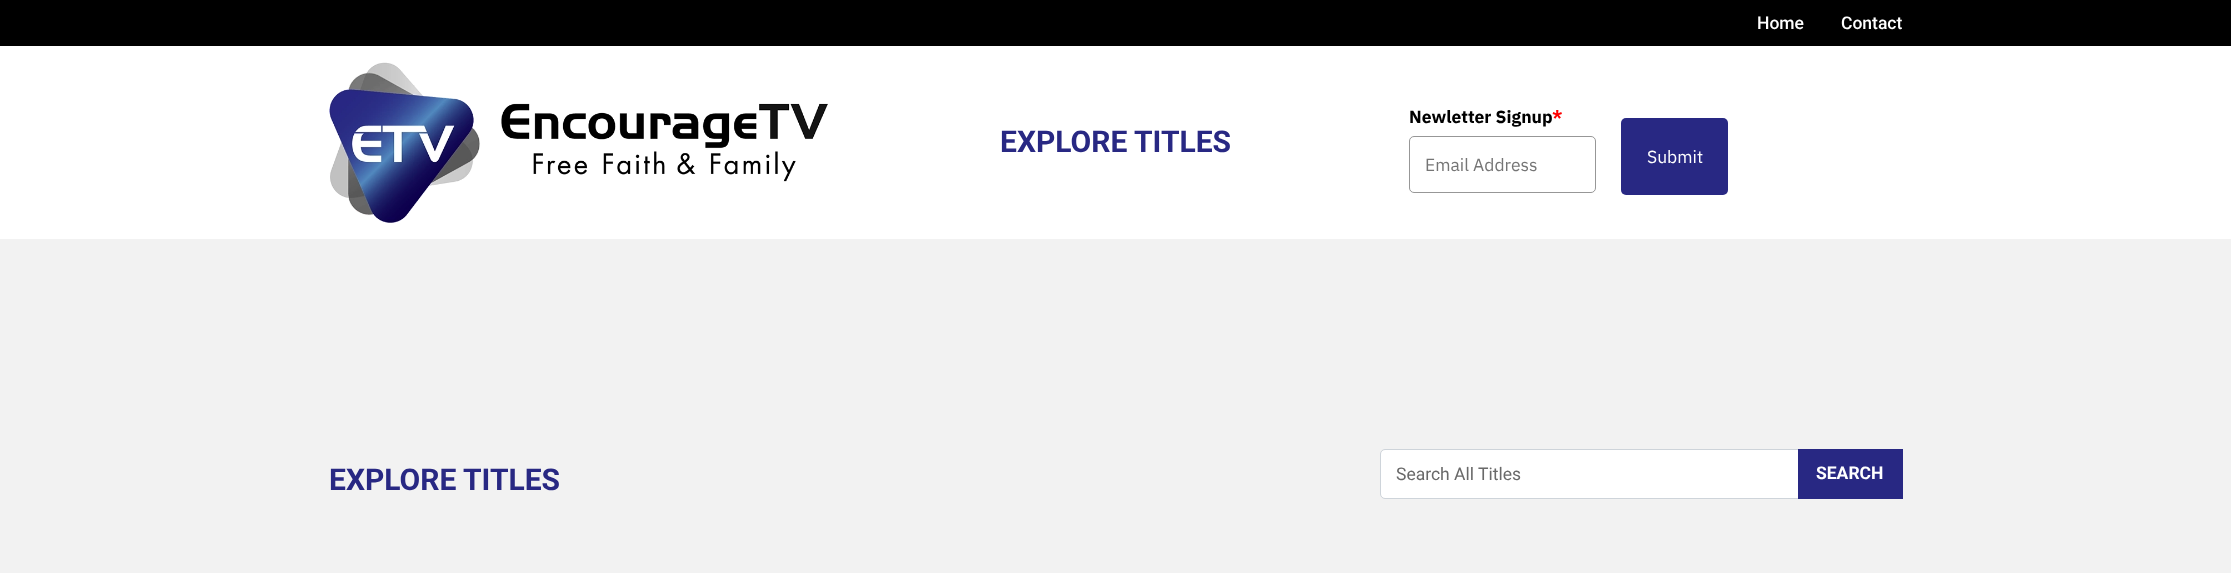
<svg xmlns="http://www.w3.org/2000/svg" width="2231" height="573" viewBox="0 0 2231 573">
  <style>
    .t1 { font: 500 17.5px Roboto; fill: #fff; }
    .t2 { font: bold 30px Roboto; fill: #282883; }
    .t3 { font: bold 17.5px IBM Plex Sans; fill: #000; }
    .t4 { font: bold 17.5px IBM Plex Sans; fill: #f00; }
    .t5 { font: 17.5px IBM Plex Sans; fill: #757575; }
    .t6 { font: 17.5px IBM Plex Sans; fill: #fff; }
    .t7 { font: 17.5px Roboto; fill: #696969; }
    .t8 { font: bold 17.5px Roboto; fill: #fff; }
  </style>
  <rect width="100%" height="100%" fill="#fff"/>
  <rect x="0" y="0" width="2231" height="46" fill="#000"/>
  <text x="1757" y="29" class="t1">Home</text>
  <text x="1841" y="29" class="t1">Contact</text>
  <image x="329" y="62" width="499" height="161" href="images/1.png"/>
  <text x="1000" y="152" class="t2">EXPLORE TITLES</text>
  <text x="1409" y="123" class="t3">Newletter Signup</text>
  <text x="1552" y="123" class="t4">*</text>
  <rect x="1409.5" y="136.5" width="186" height="56" rx="4.5" fill="none" stroke="#979797"/>
  <text x="1425" y="171" class="t5">Email Address</text>
  <rect x="1621" y="118" width="107" height="77" rx="5" fill="#282883"/>
  <text x="1647" y="163" class="t6">Submit</text>
  <rect x="0" y="239" width="2231" height="334" fill="#f2f2f2"/>
  <text x="329" y="490" class="t2">EXPLORE TITLES</text>
  <rect x="1381" y="450" width="520" height="48" rx="4" fill="#fff"/>
  <rect x="1380.5" y="449.5" width="522" height="49" rx="4.5" fill="none" stroke="#ced4da"/>
  <text x="1396" y="480" class="t7">Search All Titles</text>
  <rect x="1798" y="449" width="105" height="50" fill="#282883"/>
  <text x="1816" y="479" class="t8">SEARCH</text>
</svg>
